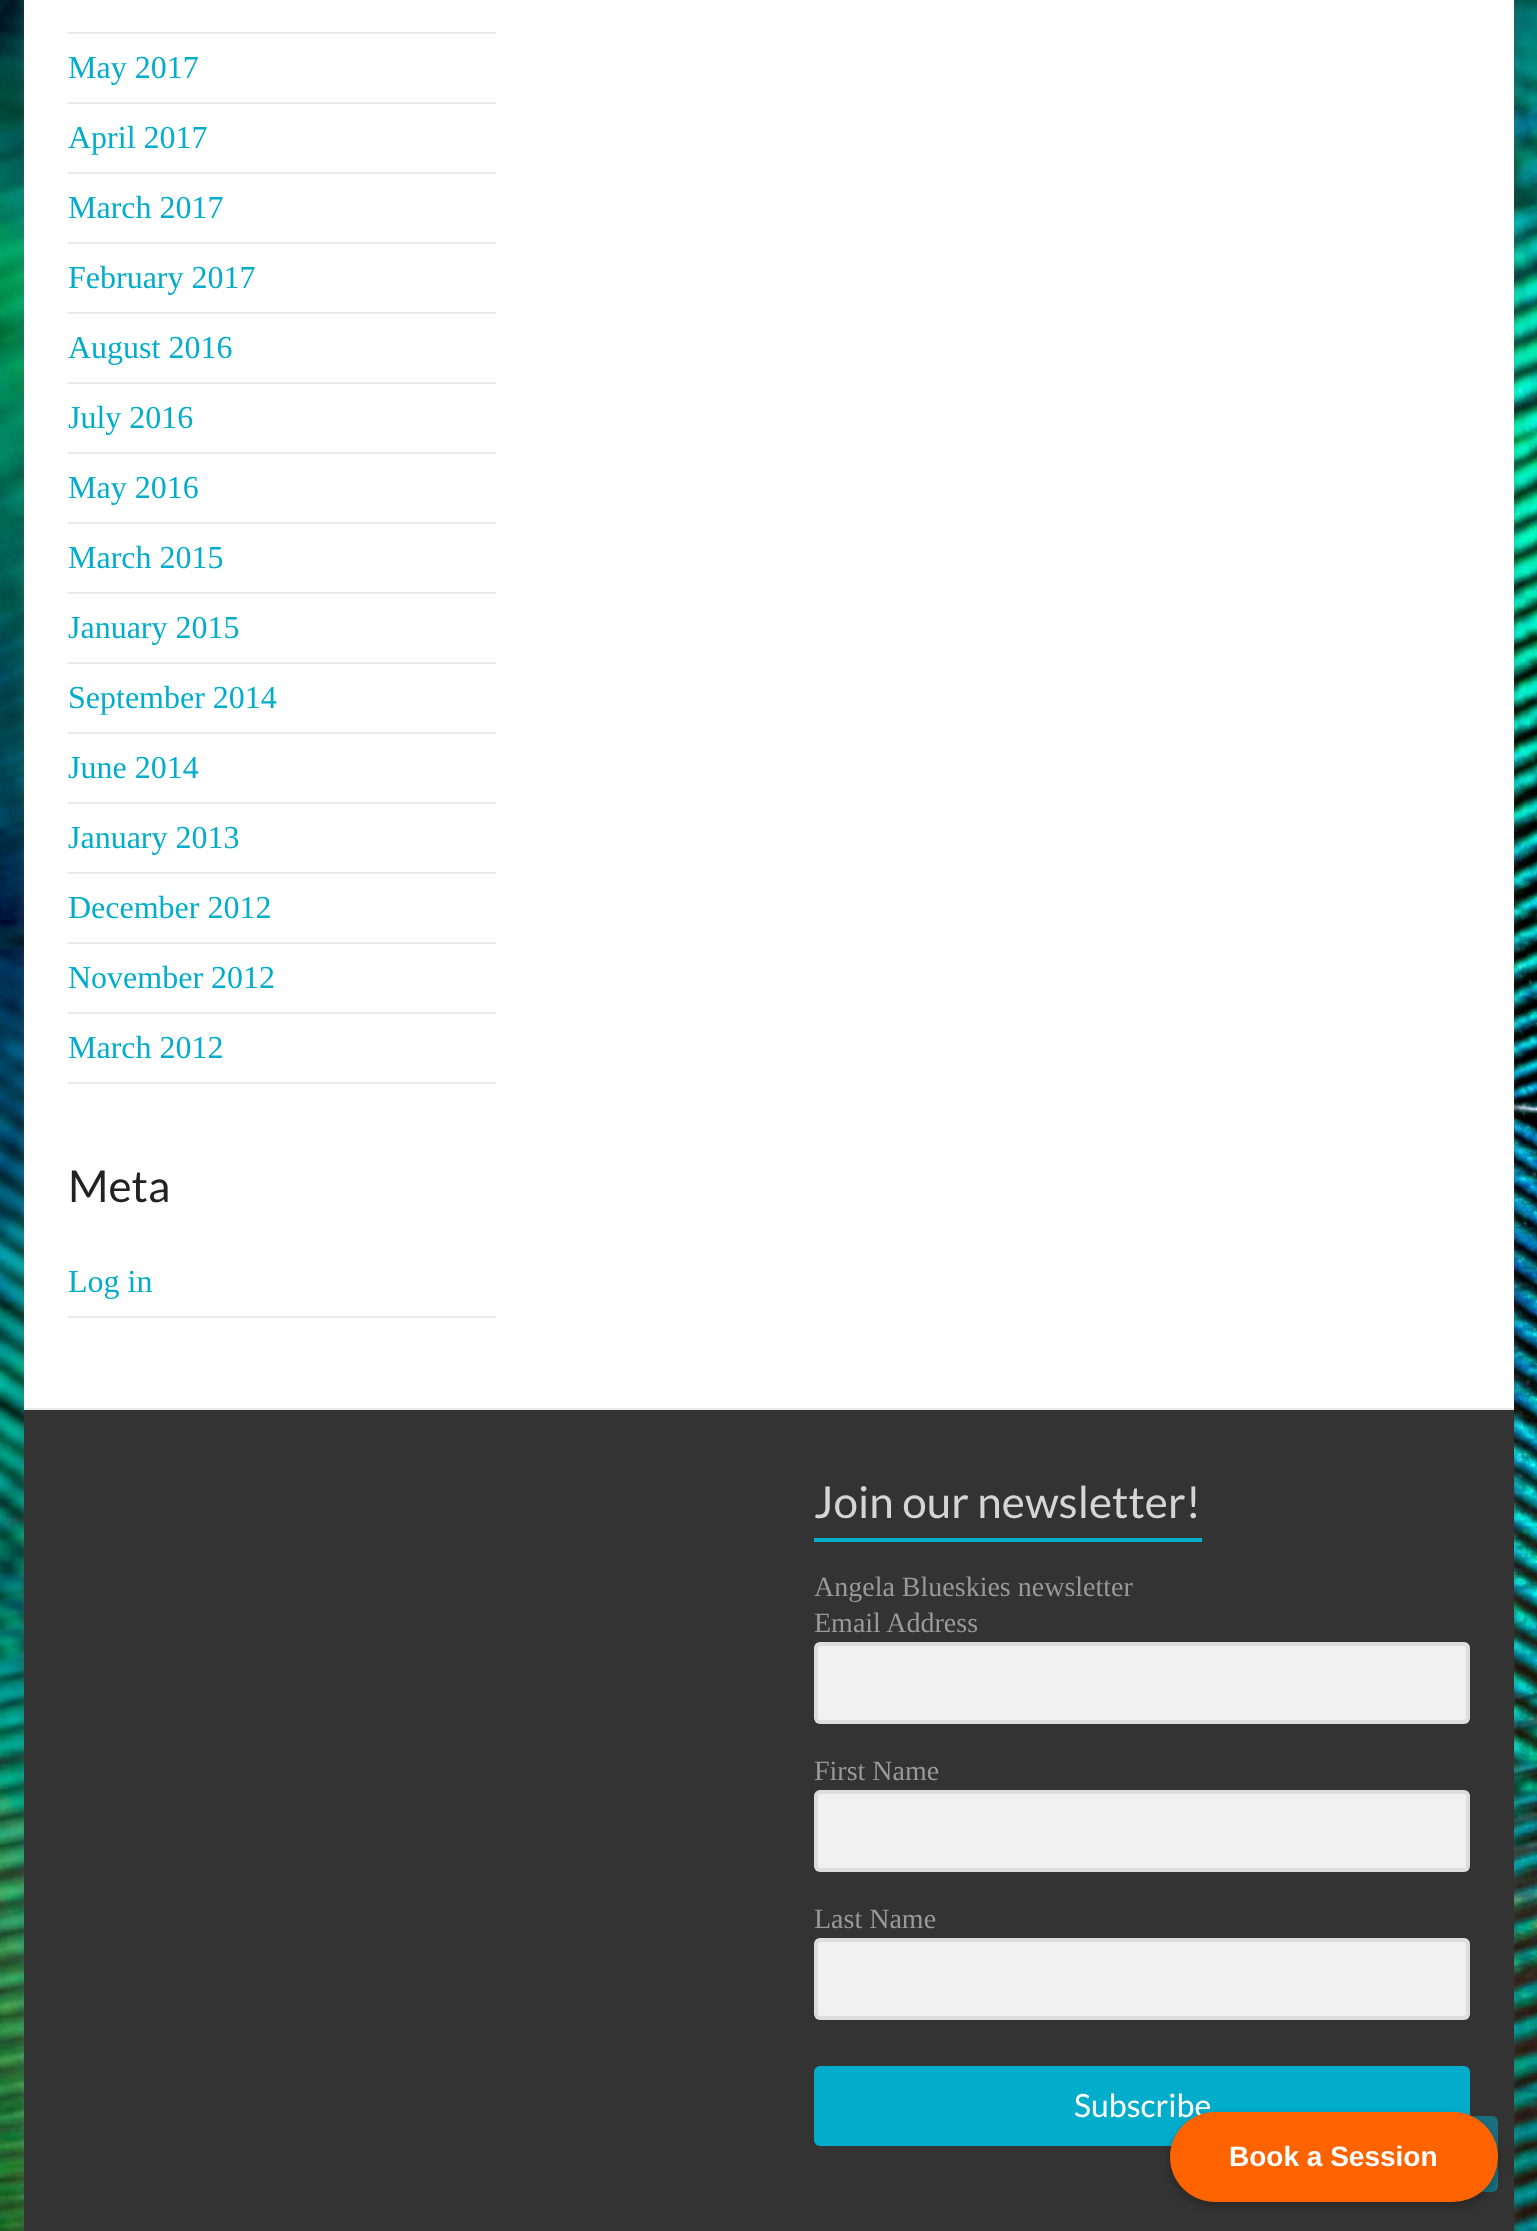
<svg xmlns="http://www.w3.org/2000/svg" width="1537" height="2231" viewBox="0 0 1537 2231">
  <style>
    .t1 { font: 32px Liberation Serif; fill: #02adcc; }
    .t2 { font: 44px Lato; fill: #222; }
    .t3 { font: 44px Lato; fill: #d5d5d5; }
    .t4 { font: 28px Liberation Serif; fill: #999; }
    .t5 { font: 32px Lato; fill: #fff; }
    .t6 { font: bold 28px Liberation Sans; fill: #fff; }
  </style>
  <rect width="100%" height="100%" fill="#fff"/>
  <image x="0" y="0" width="1537" height="2231" href="images/1.png"/>
  <rect x="24" y="-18" width="1490" height="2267" fill="#6464644d" filter="blur(6px)"/>
  <rect x="24" y="0" width="1490" height="1408" fill="#fff"/>
  <rect x="68" y="32" width="428" height="2" fill="#eaeaea"/>
  <rect x="68" y="102" width="428" height="2" fill="#eaeaea"/>
  <text x="68" y="78" class="t1">May 2017</text>
  <rect x="68" y="172" width="428" height="2" fill="#eaeaea"/>
  <text x="68" y="148" class="t1">April 2017</text>
  <rect x="68" y="242" width="428" height="2" fill="#eaeaea"/>
  <text x="68" y="218" class="t1">March 2017</text>
  <rect x="68" y="312" width="428" height="2" fill="#eaeaea"/>
  <text x="68" y="288" class="t1">February 2017</text>
  <rect x="68" y="382" width="428" height="2" fill="#eaeaea"/>
  <text x="68" y="358" class="t1">August 2016</text>
  <rect x="68" y="452" width="428" height="2" fill="#eaeaea"/>
  <text x="68" y="428" class="t1">July 2016</text>
  <rect x="68" y="522" width="428" height="2" fill="#eaeaea"/>
  <text x="68" y="498" class="t1">May 2016</text>
  <rect x="68" y="592" width="428" height="2" fill="#eaeaea"/>
  <text x="68" y="568" class="t1">March 2015</text>
  <rect x="68" y="662" width="428" height="2" fill="#eaeaea"/>
  <text x="68" y="638" class="t1">January 2015</text>
  <rect x="68" y="732" width="428" height="2" fill="#eaeaea"/>
  <text x="68" y="708" class="t1">September 2014</text>
  <rect x="68" y="802" width="428" height="2" fill="#eaeaea"/>
  <text x="68" y="778" class="t1">June 2014</text>
  <rect x="68" y="872" width="428" height="2" fill="#eaeaea"/>
  <text x="68" y="848" class="t1">January 2013</text>
  <rect x="68" y="942" width="428" height="2" fill="#eaeaea"/>
  <text x="68" y="918" class="t1">December 2012</text>
  <rect x="68" y="1012" width="428" height="2" fill="#eaeaea"/>
  <text x="68" y="988" class="t1">November 2012</text>
  <rect x="68" y="1082" width="428" height="2" fill="#eaeaea"/>
  <text x="68" y="1058" class="t1">March 2012</text>
  <text x="68" y="1202" class="t2">Meta</text>
  <rect x="68" y="1316" width="428" height="2" fill="#eaeaea"/>
  <text x="68" y="1292" class="t1">Log in</text>
  <rect x="24" y="1410" width="1490" height="821" fill="#333"/>
  <rect x="24" y="1408" width="1490" height="2" fill="#eaeaea"/>
  <text x="814" y="1518" class="t3">Join our newsletter!</text>
  <rect x="814" y="1538" width="388" height="4" fill="#02adcc"/>
  <text x="814" y="1596" class="t4">Angela Blueskies newsletter</text>
  <text x="814" y="1632" class="t4">Email Address</text>
  <rect x="814" y="1642" width="656" height="82" rx="6" fill="#f1f1f1"/>
  <rect x="816" y="1644" width="652" height="78" rx="4" fill="none" stroke="#3333331a" stroke-width="4"/>
  <text x="814" y="1780" class="t4">First Name</text>
  <rect x="814" y="1790" width="656" height="82" rx="6" fill="#f1f1f1"/>
  <rect x="816" y="1792" width="652" height="78" rx="4" fill="none" stroke="#3333331a" stroke-width="4"/>
  <text x="814" y="1928" class="t4">Last Name</text>
  <rect x="814" y="1938" width="656" height="82" rx="6" fill="#f1f1f1"/>
  <rect x="816" y="1940" width="652" height="78" rx="4" fill="none" stroke="#3333331a" stroke-width="4"/>
  <rect x="814" y="2066" width="656" height="80" rx="6" fill="#02adcc"/>
  <text x="1074" y="2117" class="t5">Subscribe</text>
  <rect x="1422" y="2116" width="76" height="76" rx="6" fill="#02adcc80"/>
  <rect x="1170" y="2116" width="328" height="90" rx="45" fill="#00000040" filter="blur(5px)"/>
  <rect x="1170" y="2112" width="328" height="90" rx="45" fill="#ff6300"/>
  <text x="1229" y="2166" class="t6">Book a Session</text>
</svg>
